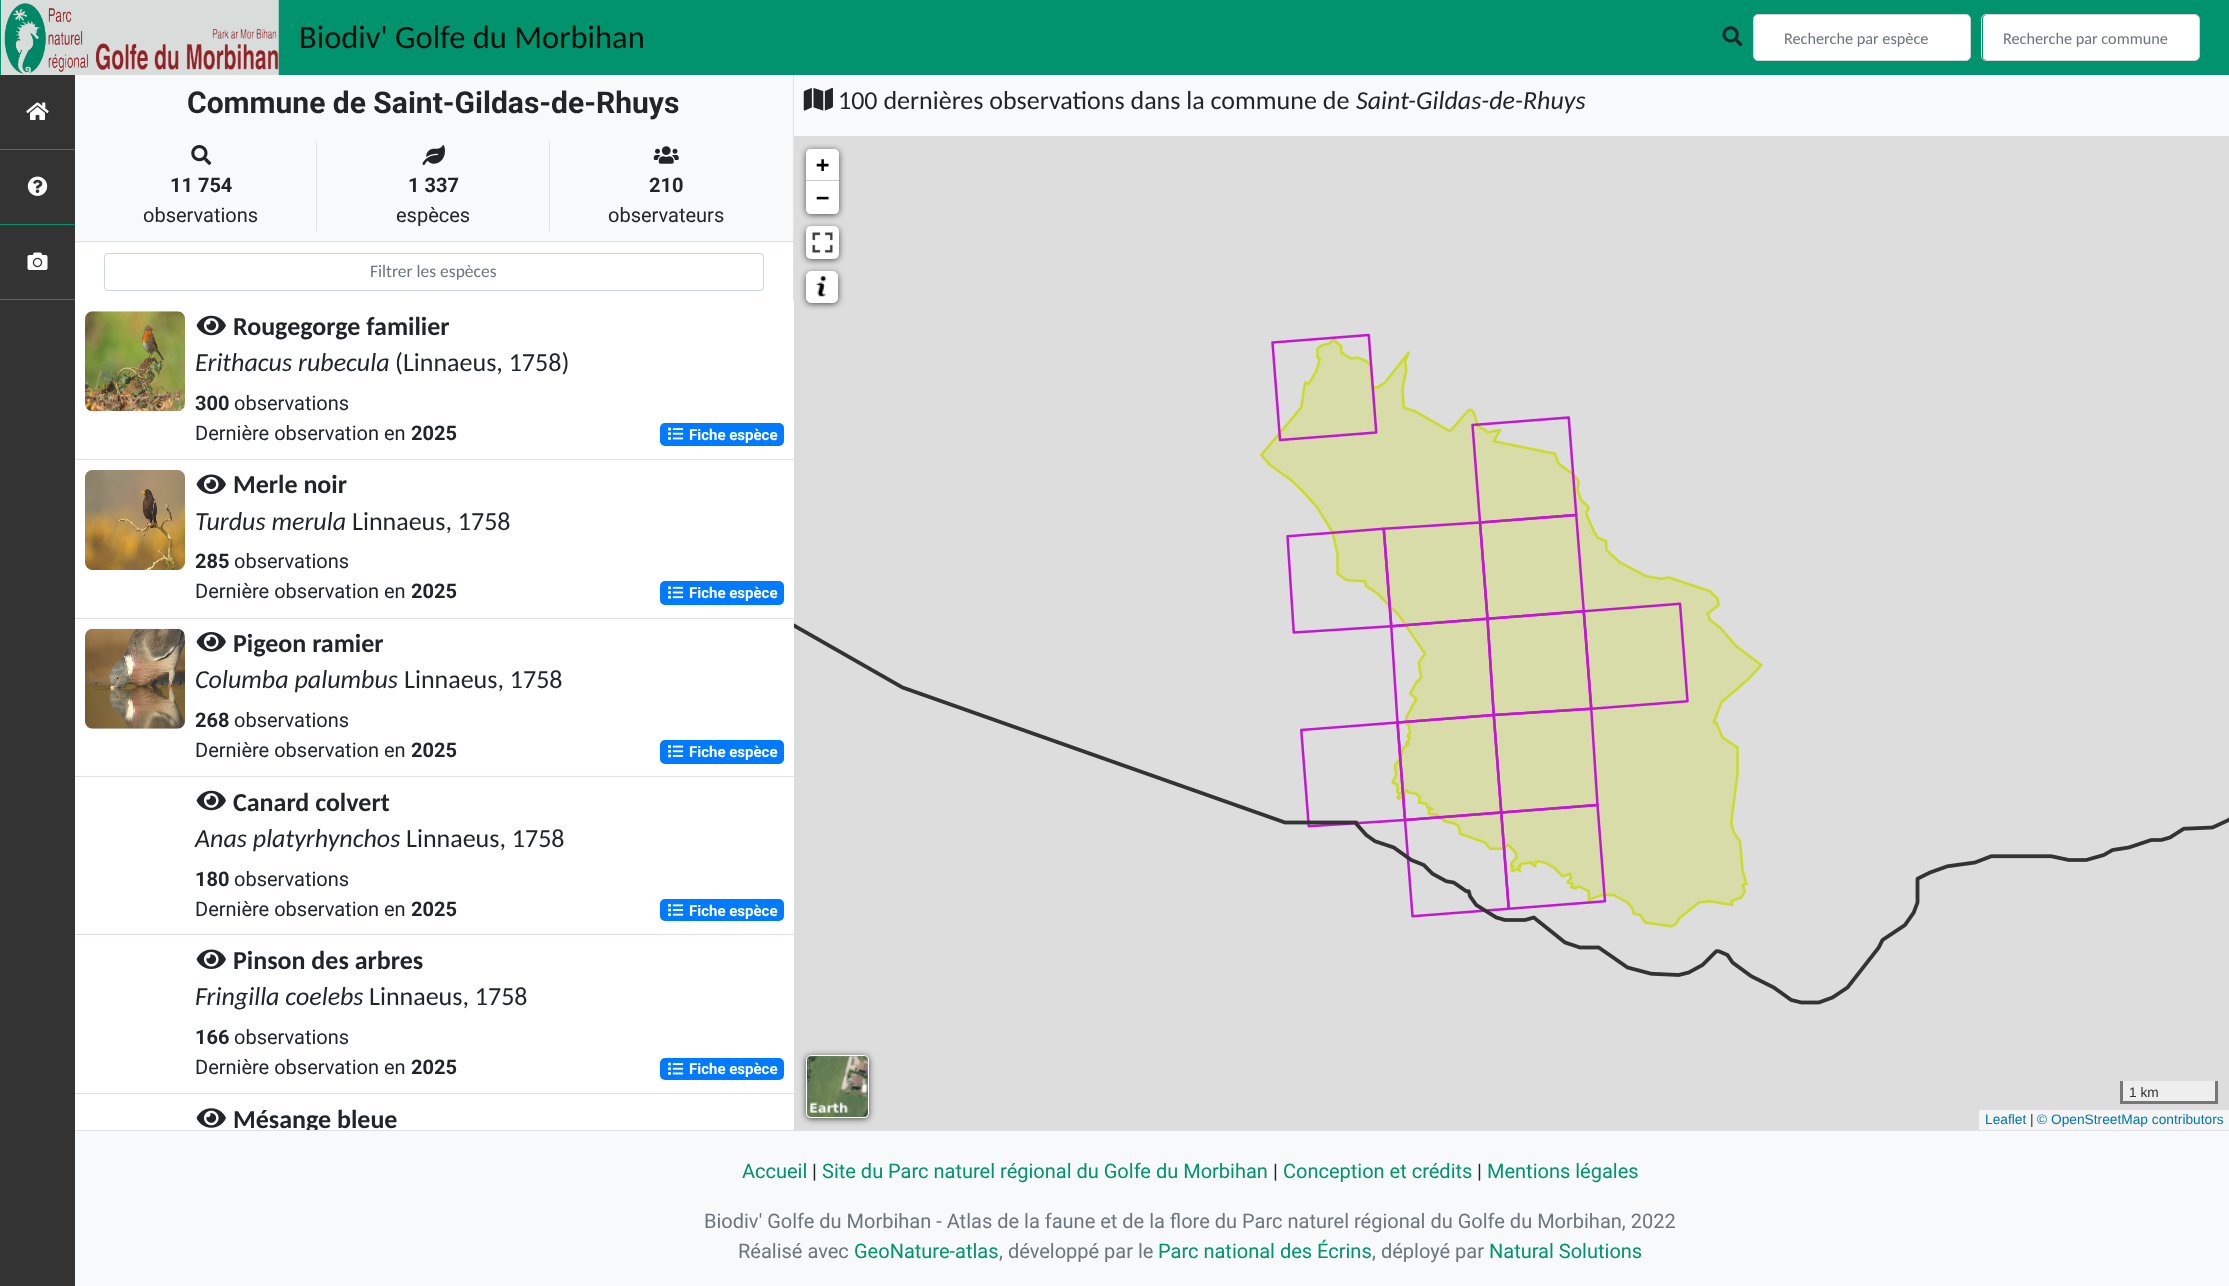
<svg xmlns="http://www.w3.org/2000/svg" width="2229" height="1286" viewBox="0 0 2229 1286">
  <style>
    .t1 { font: 32.5px Carlito; fill: #000f0b; }
    .t2 { font: 16.25px Carlito; fill: #6c757d; }
    .t3 { font: bold 30px Roboto; fill: #212529; }
    .t4 { font: bold 20px Roboto; fill: #212529; }
    .t5 { font: 20px Roboto; fill: #212529; }
    .t6 { font: 17.5px Carlito; fill: #6c757d; }
    .t7 { font: bold 26px Carlito; fill: #212529; }
    .t8 { font: italic 26px Carlito; fill: #212529; }
    .t9 { font: 26px Carlito; fill: #212529; }
    .t10 { font: bold 15px Roboto; fill: #fff; }
    .t11 { font: bold 22px DejaVu Sans Mono; fill: #000; }
    .t12 { font: 13.75px Liberation Sans; fill: #333; }
    .t13 { font: 13.75px Liberation Sans; fill: #0078a8; }
    .t14 { font: 20px Roboto; fill: #00936e; }
    .t15 { font: 20px Roboto; fill: #6c757d; }
  </style>
  <defs>
    <clipPath id="clip1"><rect x="75" y="301" width="719" height="829"/></clipPath>
    <clipPath id="clip2"><path d="M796 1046H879V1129H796ZM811 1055H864C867 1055 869 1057 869 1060V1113C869 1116 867 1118 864 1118H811C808 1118 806 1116 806 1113V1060C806 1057 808 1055 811 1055Z" clip-rule="evenodd"/></clipPath>
  </defs>
  <rect width="100%" height="100%" fill="#dee2e6"/>
  <rect x="0" y="0" width="2229" height="75" fill="#00936e"/>
  <image x="1" y="0" width="278" height="75" href="images/1.png"/>
  <text x="299" y="48" class="t1">Biodiv' Golfe du Morbihan</text>
  <image x="1722" y="26" width="21" height="21" href="images/2.png"/>
  <rect x="1753.5" y="14.5" width="217" height="46" rx="4.5" fill="#fff" stroke="#ced4da"/>
  <text x="1784" y="44" class="t2">Recherche par espèce</text>
  <rect x="1983" y="15" width="216" height="45" rx="4" fill="#fff"/>
  <rect x="1981.5" y="14.5" width="218" height="46" rx="4.5" fill="none" stroke="#ced4da"/>
  <text x="2003" y="44" class="t2">Recherche par commune</text>
  <rect x="0" y="75" width="75" height="1211" fill="#333"/>
  <rect x="0" y="149" width="75" height="1" fill="#00936e"/>
  <image x="26" y="102" width="23" height="18" href="images/3.png"/>
  <rect x="0" y="224" width="75" height="1" fill="#00936e"/>
  <image x="27" y="176" width="21" height="20" href="images/4.png"/>
  <rect x="0" y="299" width="75" height="1" fill="#00936e"/>
  <image x="27" y="252" width="21" height="18" href="images/5.png"/>
  <rect x="75" y="75" width="718" height="168" fill="#f8f9fa"/>
  <rect x="75" y="241" width="719" height="1" fill="#dee2e6"/>
  <text x="187" y="113" class="t3">Commune de Saint-Gildas-de-Rhuys</text>
  <rect x="316" y="141" width="1" height="90" fill="#dee2e6"/>
  <image x="191" y="145" width="21" height="20" href="images/6.png"/>
  <text x="170" y="192" class="t4">11 754</text>
  <text x="143" y="222" class="t5">observations</text>
  <rect x="549" y="141" width="1" height="90" fill="#dee2e6"/>
  <image x="422" y="145" width="23" height="20" href="images/7.png"/>
  <text x="408" y="192" class="t4">1 337</text>
  <text x="396" y="222" class="t5">espèces</text>
  <image x="653" y="146" width="26" height="18" href="images/8.png"/>
  <text x="649" y="192" class="t4">210</text>
  <text x="608" y="222" class="t5">observateurs</text>
  <rect x="75" y="243" width="718" height="58" fill="#fff"/>
  <rect x="104.5" y="253.5" width="659" height="37" rx="3.5" fill="none" stroke="#ced4da"/>
  <text x="370" y="277" class="t6">Filtrer les espèces</text>
  <rect x="75" y="301" width="719" height="829" fill="#fff"/>
  <rect x="75" y="459" width="719" height="1" fill="#dee2e6"/>
  <image x="85" y="311" width="100" height="101" href="images/9.png"/>
  <image x="196" y="315" width="30" height="21" href="images/10.png"/>
  <text x="233" y="335" class="t7">Rougegorge familier</text>
  <text x="195" y="371" class="t8">Erithacus rubecula</text>
  <text x="395" y="371" class="t9">(Linnaeus, 1758)</text>
  <text x="195" y="410" class="t4">300</text>
  <text x="234" y="410" class="t5">observations</text>
  <text x="195" y="440" class="t5">Dernière observation en</text>
  <text x="411" y="440" class="t4">2025</text>
  <rect x="660" y="423" width="124" height="23" rx="5" fill="#007bff"/>
  <image x="668" y="427" width="16" height="13" href="images/11.png"/>
  <text x="689" y="440" class="t10">Fiche espèce</text>
  <rect x="75" y="618" width="719" height="1" fill="#dee2e6"/>
  <image x="85" y="470" width="100" height="100" href="images/12.png"/>
  <image x="196" y="474" width="30" height="20" href="images/13.png"/>
  <text x="233" y="493" class="t7">Merle noir</text>
  <text x="195" y="530" class="t8">Turdus merula</text>
  <text x="352" y="530" class="t9">Linnaeus, 1758</text>
  <text x="195" y="568" class="t4">285</text>
  <text x="234" y="568" class="t5">observations</text>
  <text x="195" y="598" class="t5">Dernière observation en</text>
  <text x="411" y="598" class="t4">2025</text>
  <rect x="660" y="581" width="124" height="24" rx="5" fill="#007bff"/>
  <image x="668" y="586" width="16" height="13" href="images/14.png"/>
  <text x="689" y="598" class="t10">Fiche espèce</text>
  <rect x="75" y="776" width="719" height="1" fill="#dee2e6"/>
  <image x="85" y="628" width="100" height="101" href="images/15.png"/>
  <image x="196" y="632" width="30" height="20" href="images/16.png"/>
  <text x="233" y="652" class="t7">Pigeon ramier</text>
  <text x="195" y="688" class="t8">Columba palumbus</text>
  <text x="404" y="688" class="t9">Linnaeus, 1758</text>
  <text x="195" y="727" class="t4">268</text>
  <text x="234" y="727" class="t5">observations</text>
  <text x="195" y="757" class="t5">Dernière observation en</text>
  <text x="411" y="757" class="t4">2025</text>
  <rect x="660" y="740" width="124" height="24" rx="5" fill="#007bff"/>
  <image x="668" y="745" width="16" height="13" href="images/17.png"/>
  <text x="689" y="757" class="t10">Fiche espèce</text>
  <rect x="75" y="934" width="719" height="1" fill="#dee2e6"/>
  <image x="196" y="790" width="30" height="21" href="images/10.png"/>
  <text x="233" y="811" class="t7">Canard colvert</text>
  <text x="195" y="847" class="t8">Anas platyrhynchos</text>
  <text x="406" y="847" class="t9">Linnaeus, 1758</text>
  <text x="195" y="886" class="t4">180</text>
  <text x="234" y="886" class="t5">observations</text>
  <text x="195" y="916" class="t5">Dernière observation en</text>
  <text x="411" y="916" class="t4">2025</text>
  <rect x="660" y="899" width="124" height="22" rx="5" fill="#007bff"/>
  <image x="668" y="903" width="16" height="14" href="images/18.png"/>
  <text x="689" y="916" class="t10">Fiche espèce</text>
  <rect x="75" y="1093" width="719" height="1" fill="#dee2e6"/>
  <image x="196" y="949" width="30" height="20" href="images/13.png"/>
  <text x="233" y="969" class="t7">Pinson des arbres</text>
  <text x="195" y="1005" class="t8">Fringilla coelebs</text>
  <text x="369" y="1005" class="t9">Linnaeus, 1758</text>
  <text x="195" y="1044" class="t4">166</text>
  <text x="234" y="1044" class="t5">observations</text>
  <text x="195" y="1074" class="t5">Dernière observation en</text>
  <text x="411" y="1074" class="t4">2025</text>
  <rect x="660" y="1058" width="124" height="22" rx="5" fill="#007bff"/>
  <image x="668" y="1062" width="16" height="13" href="images/11.png"/>
  <text x="689" y="1074" class="t10">Fiche espèce</text>
  <image x="196" y="1108" width="30" height="20" href="images/19.png"/>
  <g clip-path="url(#clip1)">
    <text x="233" y="1128" class="t7">Mésange bleue</text>
  </g>
  <rect x="794" y="75" width="1435" height="61" fill="#f8f9fa"/>
  <image x="803" y="87" width="30" height="24" href="images/20.png"/>
  <text x="838" y="109" class="t9">100 dernières observations dans la commune de</text>
  <text x="1356" y="109" class="t8">Saint-Gildas-de-Rhuys</text>
  <rect x="794" y="136" width="1435" height="994" fill="#ddd"/>
  <rect x="806" y="150" width="33" height="65" rx="5" fill="#000000a6" filter="blur(3px)"/>
  <path d="M811 149H834C837 149 839 151 839 154V181H806V154C806 151 808 149 811 149Z" fill="#fff"/>
  <rect x="806" y="180" width="33" height="1" fill="#ccc"/>
  <text x="816" y="172" class="t11">+</text>
  <path d="M806 181H839V209C839 212 837 214 834 214H811C808 214 806 212 806 209Z" fill="#fff"/>
  <text x="816" y="205" class="t11">−</text>
  <rect x="806" y="228" width="33" height="32" rx="5" fill="#000000a6" filter="blur(3px)"/>
  <rect x="806" y="226" width="33" height="33" rx="5" fill="#fff"/>
  <image x="812" y="232" width="21" height="21" href="images/21.png"/>
  <rect x="806" y="273" width="32" height="31" rx="5" fill="#000000a6" filter="blur(3px)"/>
  <rect x="806.5" y="271.5" width="31" height="31" rx="4.5" fill="#fff" stroke="#fff"/>
  <image x="816" y="276" width="11" height="21" href="images/22.png"/>
  <g clip-path="url(#clip2)">
    <rect x="806" y="1056" width="63" height="63" rx="5" fill="#000000a6" filter="blur(3px)"/>
  </g>
  <image x="806" y="1055" width="63" height="63" href="images/23.png"/>
  <rect x="806.5" y="1055.5" width="62" height="62" rx="4.5" fill="none" stroke="#fff"/>
  <rect x="2123" y="1081" width="92" height="20" fill="#eee"/>
  <rect x="2215" y="1081" width="3" height="23" fill="#777"/>
  <rect x="2120" y="1101" width="98" height="3" fill="#777"/>
  <rect x="2120" y="1081" width="3" height="23" fill="#777"/>
  <text x="2129" y="1097" class="t12">1 km</text>
  <rect x="1979" y="1110" width="250" height="20" fill="#f5f5f5"/>
  <text x="1985" y="1124" class="t13">Leaflet</text>
  <text x="2030" y="1124" class="t12">|</text>
  <text x="2037" y="1124" class="t13">© OpenStreetMap contributors</text>
  <image x="794" y="333" width="1435" height="672" href="images/24.png"/>
  <rect x="75" y="1131" width="2154" height="155" fill="#f8f9fa"/>
  <text x="742" y="1178" class="t14">Accueil</text>
  <text x="812" y="1178" class="t5">|</text>
  <text x="822" y="1178" class="t14">Site du Parc naturel régional du Golfe du Morbihan</text>
  <text x="1273" y="1178" class="t5">|</text>
  <text x="1283" y="1178" class="t14">Conception et crédits</text>
  <text x="1477" y="1178" class="t5">|</text>
  <text x="1487" y="1178" class="t14">Mentions légales</text>
  <text x="704" y="1228" class="t15">Biodiv' Golfe du Morbihan - Atlas de la faune et de la flore du Parc naturel régional du Golfe du Morbihan, 2022</text>
  <text x="738" y="1258" class="t15">Réalisé avec</text>
  <text x="854" y="1258" class="t14">GeoNature-atlas</text>
  <text x="999" y="1258" class="t15">, développé par le</text>
  <text x="1158" y="1258" class="t14">Parc national des Écrins</text>
  <text x="1372" y="1258" class="t15">, déployé par</text>
  <text x="1489" y="1258" class="t14">Natural Solutions</text>
</svg>
